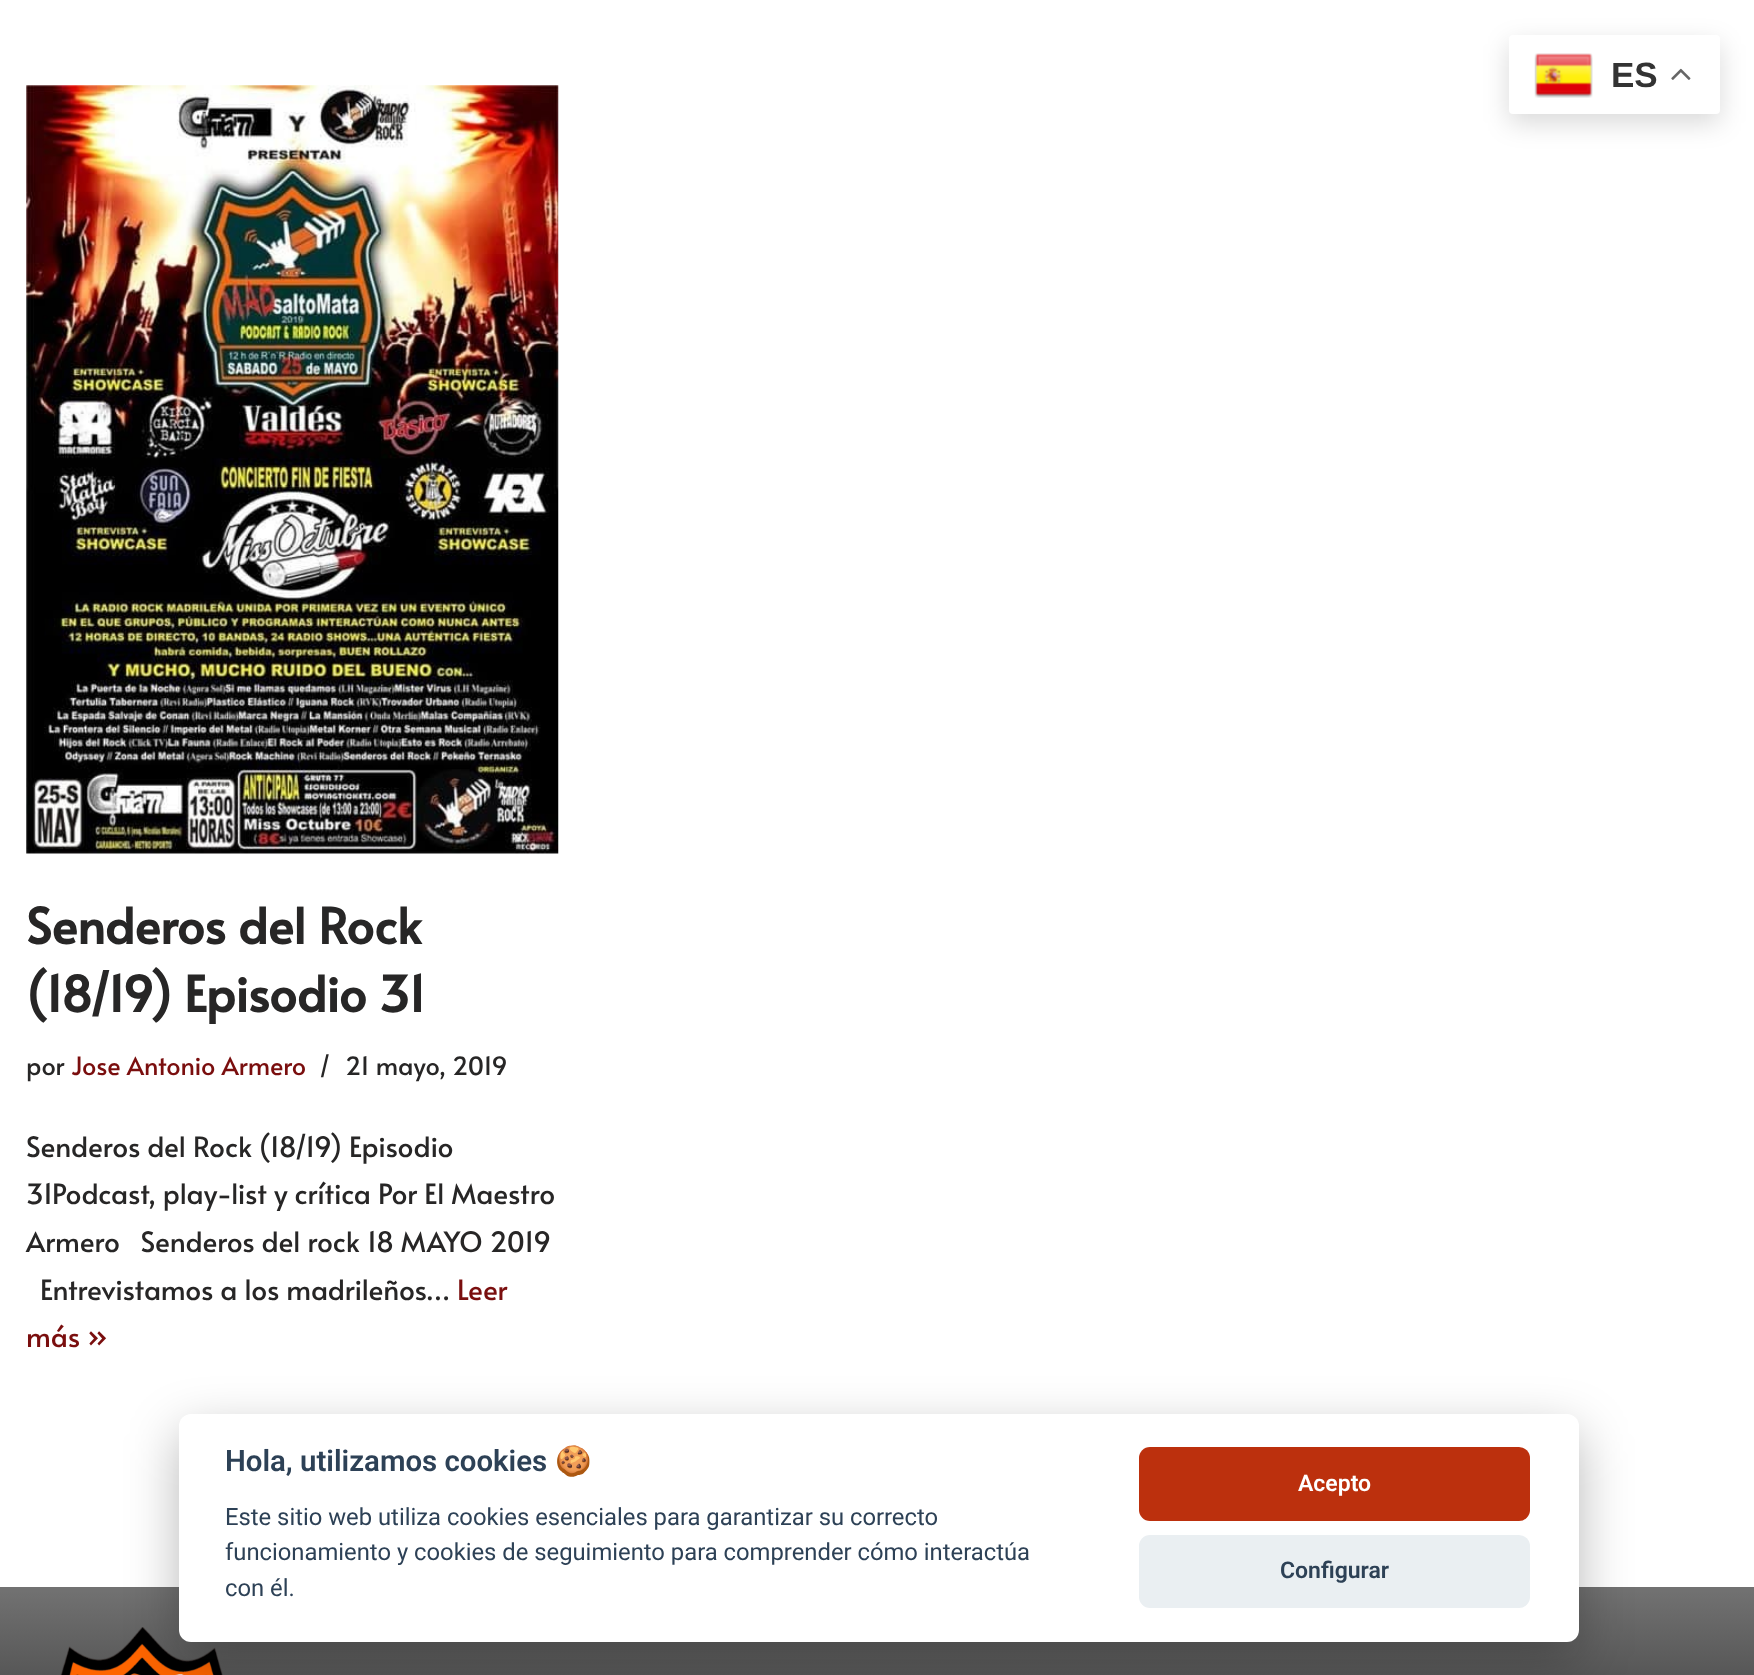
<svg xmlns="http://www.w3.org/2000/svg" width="1754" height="1675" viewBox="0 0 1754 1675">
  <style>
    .t1 { font: bold 35px Liberation Sans; fill: #333; }
    .t2 { font: bold 49px Alata; fill: #272626; }
    .t3 { font: 25.25px Alata; fill: #272626; }
    .t4 { font: 25.25px Alata; fill: #7a0e0e; }
    .t5 { font: 28px Alata; fill: #272626; }
    .t6 { font: 28px Alata; fill: #7a0e0e; }
    .t7 { font: 600 29.4px Roboto; fill: #2d4156; }
    .t8 { font: bold 29.4px Noto Color Emoji; fill: #2d4156; }
    .t9 { font: 23.8px Roboto; fill: #2d4156; }
    .t10 { font: 600 23px Roboto; fill: #fff; }
    .t11 { font: 600 23px Roboto; fill: #2d4156; }
  </style>
  <defs>
    <linearGradient id="g1" gradientUnits="userSpaceOnUse" x1="878" y1="1587" x2="878" y2="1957"><stop offset="0.01" stop-color="#717171"/><stop offset="1" stop-color="#000"/></linearGradient>
  </defs>
  <rect width="100%" height="100%" fill="#fff"/>
  <rect x="1509" y="44" width="211" height="79" rx="4" fill="#00000026" filter="blur(13px)"/>
  <rect x="1509" y="35" width="211" height="79" rx="4" fill="#fff"/>
  <image x="1534" y="53" width="59" height="45" href="images/1.png"/>
  <text x="1611" y="87" class="t1">ES</text>
  <image x="1671" y="68" width="20" height="12" href="images/2.png"/>
  <image x="26" y="85" width="533" height="769" href="images/3.png"/>
  <text x="26" y="944" class="t2">Senderos del Rock</text>
  <text x="26" y="1012" class="t2">(18/19) Episodio 31</text>
  <text x="26" y="1075" class="t3">por</text>
  <text x="71" y="1075" class="t4">Jose Antonio Armero</text>
  <text x="319" y="1075" class="t3">/</text>
  <text x="345" y="1075" class="t3">21 mayo, 2019</text>
  <text x="26" y="1157" class="t5">Senderos del Rock (18/19) Episodio</text>
  <text x="26" y="1204" class="t5">31Podcast, play-list y crítica Por El Maestro</text>
  <text x="26" y="1252" class="t5" xml:space="preserve">Armero   Senderos del rock 18 MAYO 2019</text>
  <text x="40" y="1300" class="t5">Entrevistamos a los madrileños…</text>
  <text x="457" y="1300" class="t6">Leer</text>
  <text x="26" y="1347" class="t6">más »</text>
  <rect x="0" y="1587" width="1754" height="88" fill="url(#g1)"/>
  <image x="60" y="1627" width="163" height="48" href="images/4.png"/>
  <rect x="179" y="1432" width="1400" height="227" rx="12" fill="#02020347" filter="blur(26px)"/>
  <rect x="179" y="1414" width="1400" height="228" rx="12" fill="#fff"/>
  <text x="225" y="1471" class="t7">Hola, utilizamos cookies</text>
  <text x="555" y="1471" class="t8">🍪</text>
  <text x="225" y="1525" class="t9">Este sitio web utiliza cookies esenciales para garantizar su correcto</text>
  <text x="225" y="1560" class="t9">funcionamiento y cookies de seguimiento para comprender cómo interactúa</text>
  <text x="225" y="1596" class="t9">con él.</text>
  <rect x="1139" y="1447" width="391" height="74" rx="11" fill="#bc300d"/>
  <text x="1298" y="1491" class="t10">Acepto</text>
  <rect x="1139" y="1535" width="391" height="73" rx="11" fill="#eaeff2"/>
  <text x="1280" y="1578" class="t11">Configurar</text>
</svg>
